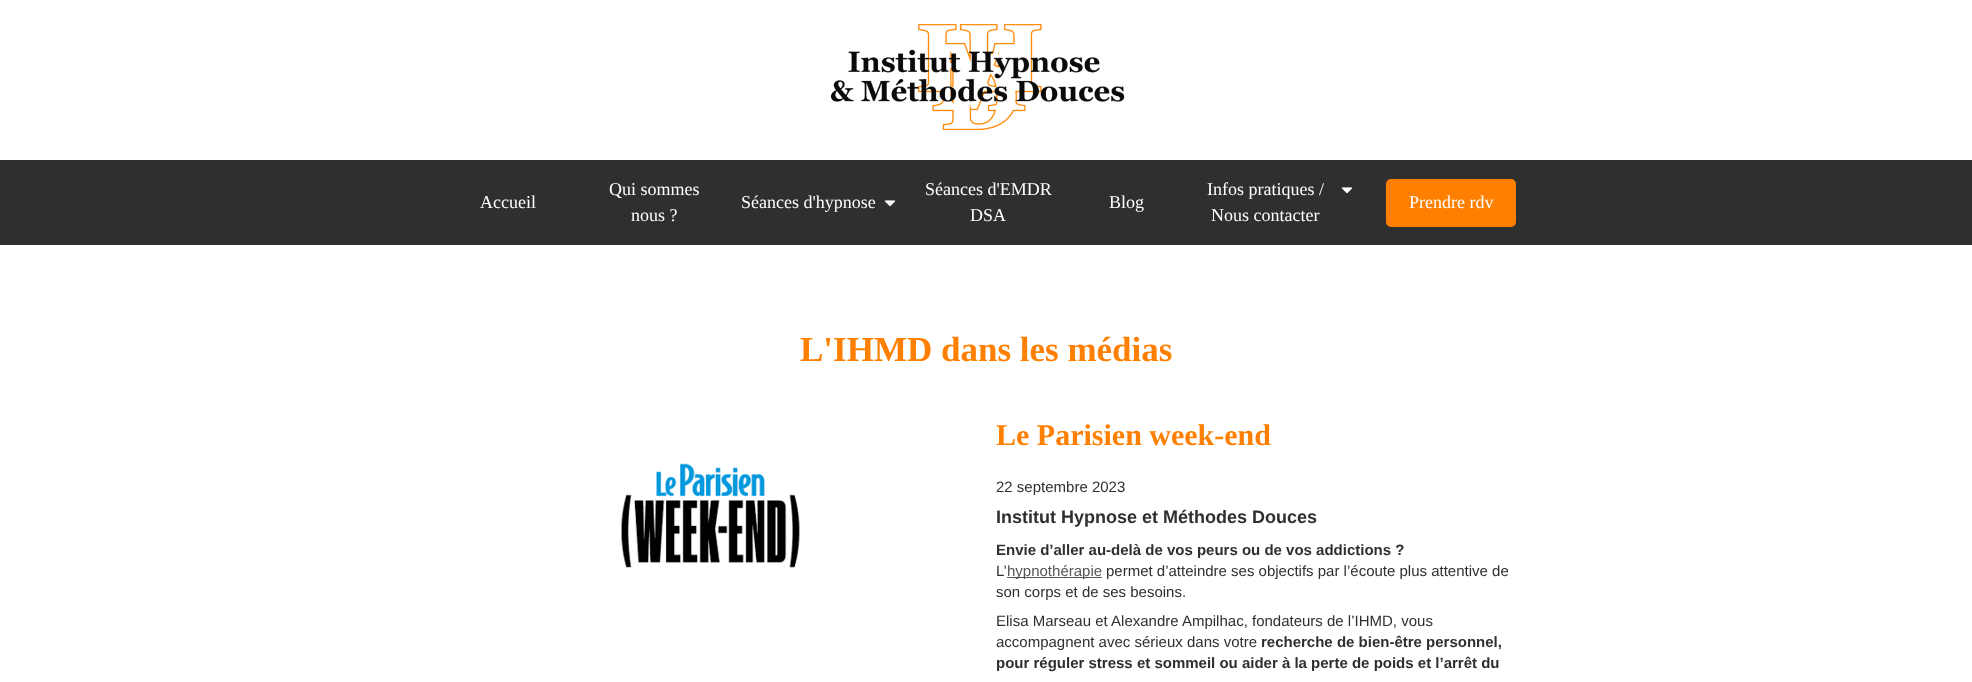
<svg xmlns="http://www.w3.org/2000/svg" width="1972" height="682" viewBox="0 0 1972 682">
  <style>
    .t1 { font: 18px Liberation Serif; fill: #fff; }
    .t2 { font: bold 35px Liberation Serif; fill: #ff7f00; }
    .t3 { font: bold 30px Liberation Serif; fill: #ff7f00; }
    .t4 { font: 15px Liberation Sans; fill: #2f2f2f; }
    .t5 { font: bold 18px Liberation Sans; fill: #2f2f2f; }
    .t6 { font: bold 15px Liberation Sans; fill: #2f2f2f; }
    .t7 { font: 15px Liberation Sans; fill: #555; }
  </style>
  <rect width="100%" height="100%" fill="#fff"/>
  <image x="830" y="24" width="295" height="107" href="images/1.png"/>
  <rect x="0" y="160" width="1972" height="85" fill="#2f2f2f"/>
  <text x="480" y="208" class="t1">Accueil</text>
  <text x="609" y="195" class="t1">Qui sommes</text>
  <text x="631" y="221" class="t1">nous ?</text>
  <text x="741" y="208" class="t1">Séances d'hypnose</text>
  <image x="884" y="200" width="12" height="7" href="images/2.png"/>
  <text x="925" y="195" class="t1">Séances d'EMDR</text>
  <text x="970" y="221" class="t1">DSA</text>
  <text x="1109" y="208" class="t1">Blog</text>
  <text x="1207" y="195" class="t1">Infos pratiques /</text>
  <text x="1211" y="221" class="t1">Nous contacter</text>
  <image x="1341" y="187" width="12" height="7" href="images/2.png"/>
  <rect x="1387.5" y="180.5" width="127" height="45" rx="3.5" fill="#ff7f00" stroke="#ff7f00" stroke-width="3"/>
  <text x="1409" y="208" class="t1">Prendre rdv</text>
  <text x="800" y="361" class="t2">L'IHMD dans les médias</text>
  <image x="621" y="463" width="179" height="105" href="images/3.png"/>
  <text x="996" y="445" class="t3">Le Parisien week-end</text>
  <text x="996" y="492" class="t4">22 septembre 2023</text>
  <text x="996" y="523" class="t5">Institut Hypnose et Méthodes Douces</text>
  <text x="996" y="555" class="t6">Envie d’aller au-delà de vos peurs ou de vos addictions ?</text>
  <text x="996" y="576" class="t4">L’</text>
  <rect x="1007" y="577" width="95" height="1" fill="#555"/>
  <text x="1007" y="576" class="t7">hypnothérapie</text>
  <text x="1106" y="576" class="t4">permet d’atteindre ses objectifs par l’écoute plus attentive de</text>
  <text x="996" y="597" class="t4">son corps et de ses besoins.</text>
  <text x="996" y="626" class="t4">Elisa Marseau et Alexandre Ampilhac, fondateurs de l’IHMD, vous</text>
  <text x="996" y="647" class="t4">accompagnent avec sérieux dans votre</text>
  <text x="1261" y="647" class="t6">recherche de bien-être personnel,</text>
  <text x="996" y="668" class="t6">pour réguler stress et sommeil ou aider à la perte de poids et l’arrêt du</text>
</svg>
